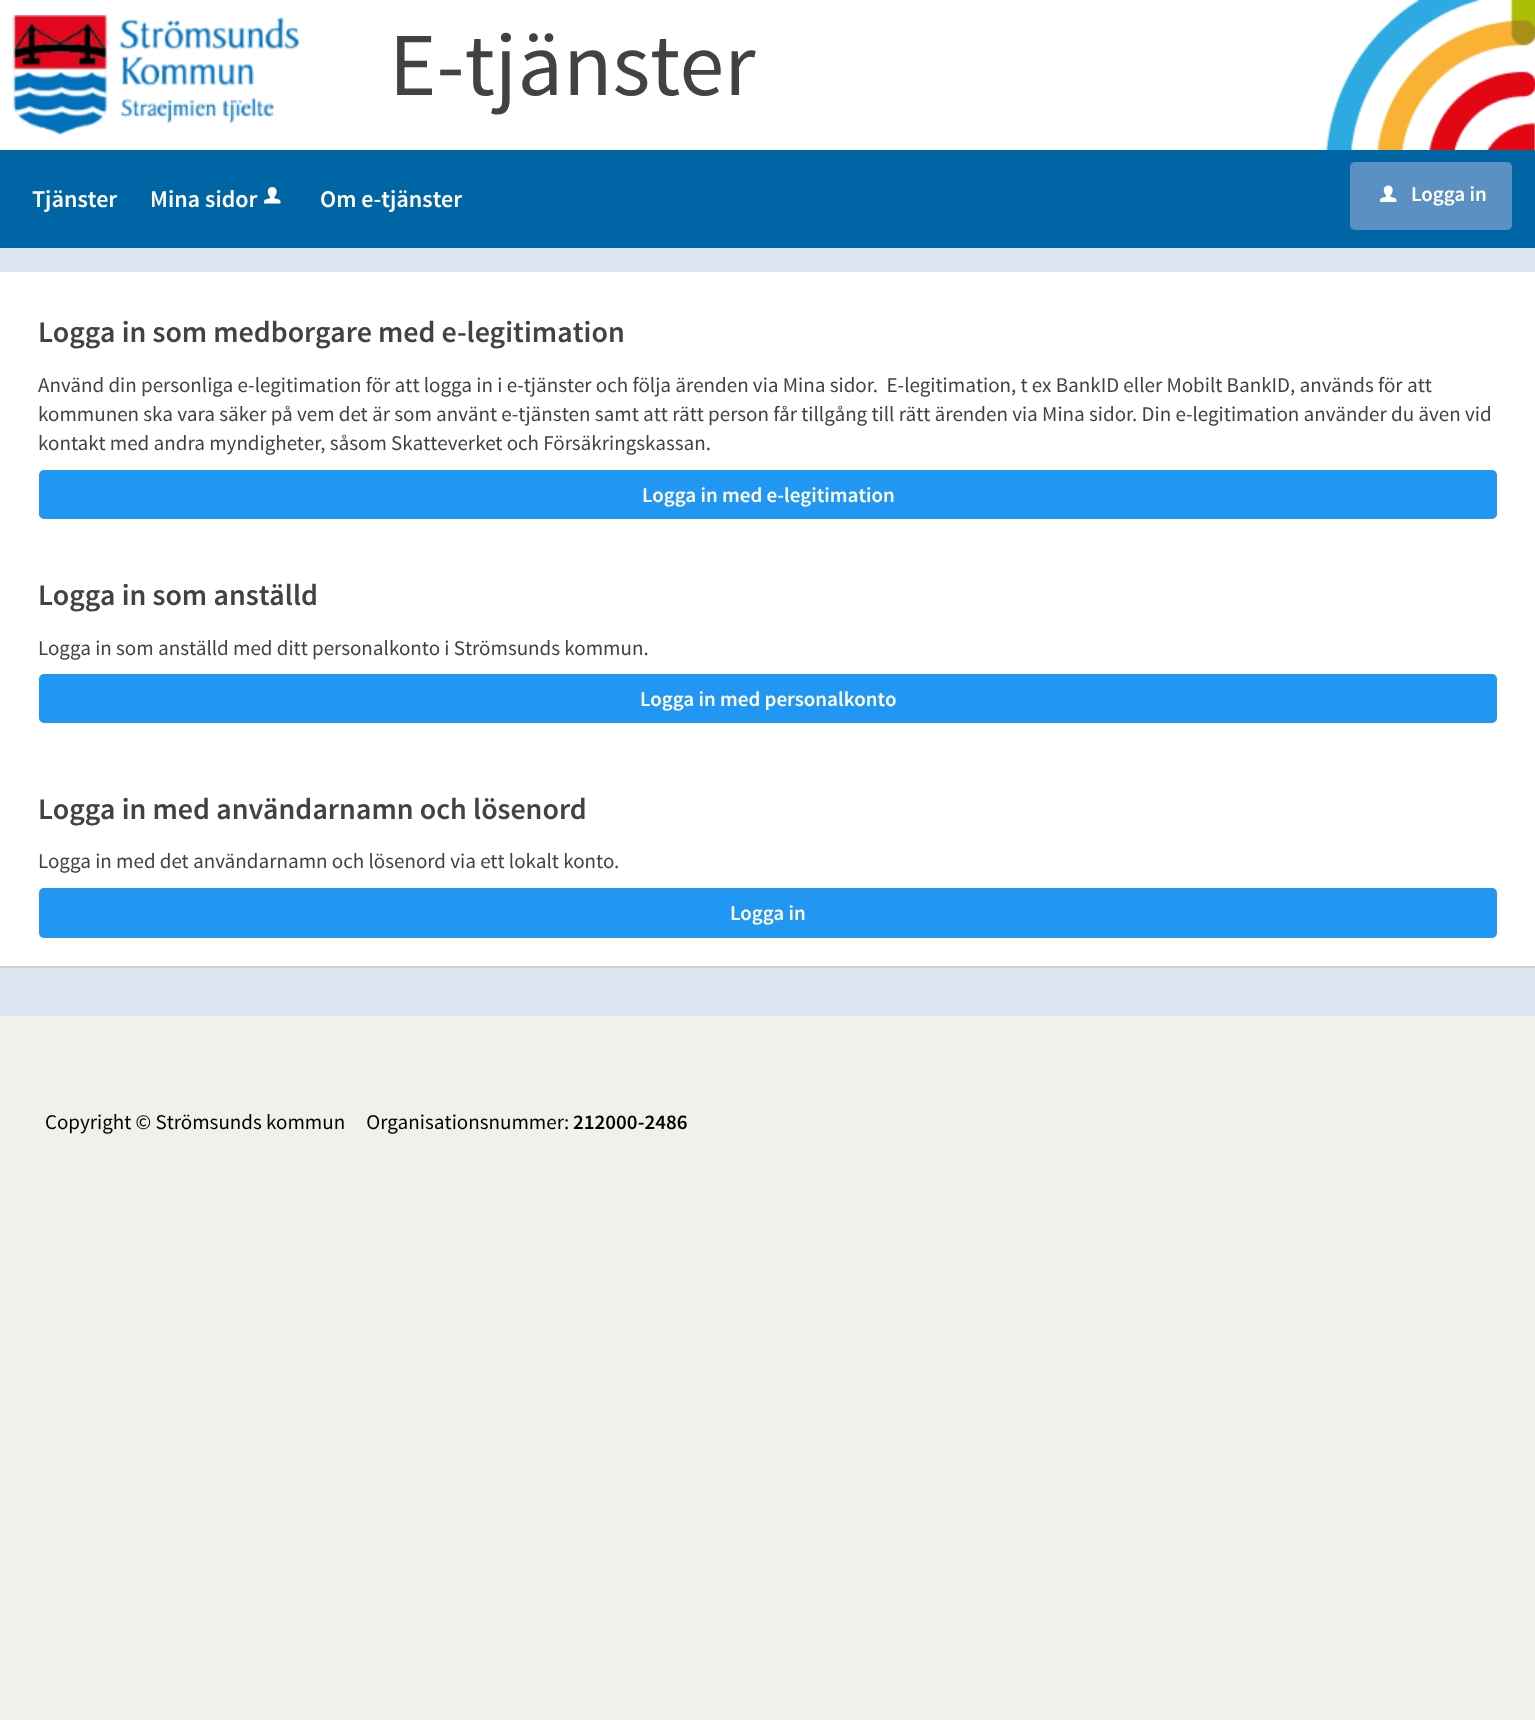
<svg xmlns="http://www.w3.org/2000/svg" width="1535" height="1720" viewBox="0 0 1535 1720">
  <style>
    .t1 { font: 90px Source Sans Pro; fill: #424242; }
    .t2 { font: 600 24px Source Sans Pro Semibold; fill: #fff; }
    .t3 { font: 600 21px Source Sans Pro Semibold; fill: #fff; }
    .t4 { font: 600 30px Source Sans Pro Semibold; fill: #424242; }
    .t5 { font: 21px Source Sans Pro; fill: #424242; }
    .t6 { font: 21px Source Sans Pro; fill: #000; }
    .t7 { font: 600 21px Source Sans Pro Semibold; fill: #000; }
  </style>
  <rect width="100%" height="100%" fill="#dde7f2"/>
  <rect x="0" y="0" width="1535" height="150" fill="#fff"/>
  <image x="1326" y="0" width="209" height="150" href="images/1.png"/>
  <image x="13" y="15" width="286" height="120" href="images/2.png"/>
  <text x="389" y="95" class="t1">E-tjänster</text>
  <rect x="0" y="150" width="1535" height="98" fill="#0065a4"/>
  <text x="32" y="207" class="t2">Tjänster</text>
  <text x="150" y="207" class="t2">Mina sidor</text>
  <image x="264" y="187" width="17" height="17" href="images/3.png"/>
  <text x="320" y="207" class="t2">Om e-tjänster</text>
  <rect x="1350" y="162" width="162" height="68" rx="5" fill="#5a90c2"/>
  <image x="1380" y="185" width="17" height="17" href="images/4.png"/>
  <text x="1411" y="201" class="t3">Logga in</text>
  <rect x="0" y="272" width="1535" height="694" fill="#fff"/>
  <rect x="0" y="966" width="1535" height="2" fill="#cfcfcf"/>
  <text x="38" y="342" class="t4">Logga in som medborgare med e-legitimation</text>
  <text x="38" y="392" class="t5" xml:space="preserve">Använd din personliga e-legitimation för att logga in i e-tjänster och följa ärenden via Mina sidor.  E-legitimation, t ex BankID eller Mobilt BankID, används för att</text>
  <text x="38" y="421" class="t5">kommunen ska vara säker på vem det är som använt e-tjänsten samt att rätt person får tillgång till rätt ärenden via Mina sidor. Din e-legitimation använder du även vid</text>
  <text x="38" y="450" class="t5">kontakt med andra myndigheter, såsom Skatteverket och Försäkringskassan.</text>
  <rect x="39" y="470" width="1458" height="49" rx="5" fill="#2196f3"/>
  <text x="642" y="502" class="t3">Logga in med e-legitimation</text>
  <text x="38" y="605" class="t4">Logga in som anställd</text>
  <text x="38" y="655" class="t5">Logga in som anställd med ditt personalkonto i Strömsunds kommun.</text>
  <rect x="39" y="674" width="1458" height="49" rx="5" fill="#2196f3"/>
  <text x="640" y="706" class="t3">Logga in med personalkonto</text>
  <text x="38" y="819" class="t4">Logga in med användarnamn och lösenord</text>
  <text x="38" y="868" class="t5">Logga in med det användarnamn och lösenord via ett lokalt konto.</text>
  <rect x="39" y="888" width="1458" height="50" rx="5" fill="#2196f3"/>
  <text x="730" y="920" class="t3">Logga in</text>
  <path d="M-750 1016V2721H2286V1016H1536V1221H0V1016Z" fill="#f2f0eb"/>
  <rect x="0" y="1016" width="1535" height="205" fill="#f2f0eb"/>
  <text x="45" y="1129" class="t6" xml:space="preserve">Copyright © Strömsunds kommun     Organisationsnummer:</text>
  <text x="573" y="1129" class="t7">212000-2486</text>
</svg>
